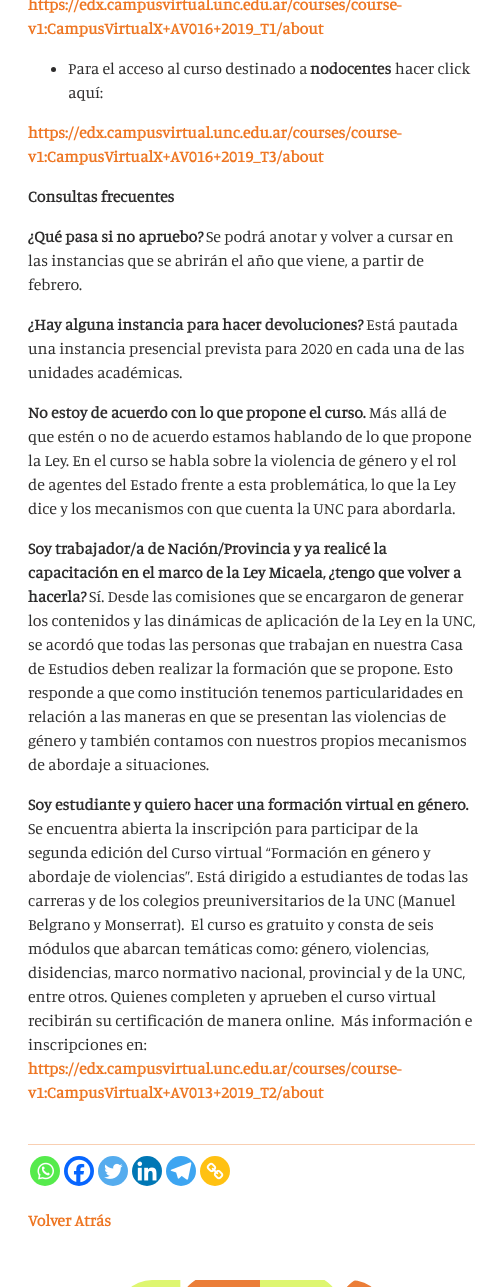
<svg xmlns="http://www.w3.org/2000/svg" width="503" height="1287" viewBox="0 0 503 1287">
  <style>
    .t1 { font: bold 16px Manuale; fill: #ee7623; }
    .t2 { font: 16px Manuale; fill: #2d2c2c; }
    .t3 { font: bold 16px Manuale; fill: #2d2c2c; }
  </style>
  <rect width="100%" height="100%" fill="#fff"/>
  <text x="28" y="10" class="t1">https://edx.campusvirtual.unc.edu.ar/courses/course-</text>
  <text x="28" y="34" class="t1">v1:CampusVirtualX+AV016+2019_T1/about</text>
  <circle cx="53.5" cy="69.5" r="2.5" fill="#2d2c2c"/>
  <text x="68" y="74" class="t2">Para el acceso al curso destinado a</text>
  <text x="310" y="74" class="t3">nodocentes</text>
  <text x="395" y="74" class="t2">hacer click</text>
  <text x="68" y="98" class="t2">aquí:</text>
  <text x="28" y="138" class="t1">https://edx.campusvirtual.unc.edu.ar/courses/course-</text>
  <text x="28" y="162" class="t1">v1:CampusVirtualX+AV016+2019_T3/about</text>
  <text x="28" y="202" class="t3">Consultas frecuentes</text>
  <text x="28" y="242" class="t3">¿Qué pasa si no apruebo?</text>
  <text x="206" y="242" class="t2">Se podrá anotar y volver a cursar en</text>
  <text x="28" y="266" class="t2">las instancias que se abrirán el año que viene, a partir de</text>
  <text x="28" y="290" class="t2">febrero.</text>
  <text x="28" y="330" class="t3">¿Hay alguna instancia para hacer devoluciones?</text>
  <text x="366" y="330" class="t2">Está pautada</text>
  <text x="28" y="354" class="t2">una instancia presencial prevista para 2020 en cada una de las</text>
  <text x="28" y="378" class="t2">unidades académicas.</text>
  <text x="28" y="418" class="t3">No estoy de acuerdo con lo que propone el curso.</text>
  <text x="369" y="418" class="t2">Más allá de</text>
  <text x="28" y="442" class="t2">que estén o no de acuerdo estamos hablando de lo que propone</text>
  <text x="28" y="466" class="t2">la Ley. En el curso se habla sobre la violencia de género y el rol</text>
  <text x="28" y="490" class="t2">de agentes del Estado frente a esta problemática, lo que la Ley</text>
  <text x="28" y="514" class="t2">dice y los mecanismos con que cuenta la UNC para abordarla.</text>
  <text x="28" y="554" class="t3">Soy trabajador/a de Nación/Provincia y ya realicé la</text>
  <text x="28" y="578" class="t3">capacitación en el marco de la Ley Micaela, ¿tengo que volver a</text>
  <text x="28" y="602" class="t3">hacerla?</text>
  <text x="89" y="602" class="t2">Sí. Desde las comisiones que se encargaron de generar</text>
  <text x="28" y="626" class="t2">los contenidos y las dinámicas de aplicación de la Ley en la UNC,</text>
  <text x="28" y="650" class="t2">se acordó que todas las personas que trabajan en nuestra Casa</text>
  <text x="28" y="674" class="t2">de Estudios deben realizar la formación que se propone. Esto</text>
  <text x="28" y="698" class="t2">responde a que como institución tenemos particularidades en</text>
  <text x="28" y="722" class="t2">relación a las maneras en que se presentan las violencias de</text>
  <text x="28" y="746" class="t2">género y también contamos con nuestros propios mecanismos</text>
  <text x="28" y="770" class="t2">de abordaje a situaciones.</text>
  <text x="28" y="810" class="t3">Soy estudiante y quiero hacer una formación virtual en género.</text>
  <text x="28" y="834" class="t2">Se encuentra abierta la inscripción para participar de la</text>
  <text x="28" y="858" class="t2">segunda edición del Curso virtual “Formación en género y</text>
  <text x="28" y="882" class="t2">abordaje de violencias”. Está dirigido a estudiantes de todas las</text>
  <text x="28" y="906" class="t2">carreras y de los colegios preuniversitarios de la UNC (Manuel</text>
  <text x="28" y="930" class="t2" xml:space="preserve">Belgrano y Monserrat).  El curso es gratuito y consta de seis</text>
  <text x="28" y="954" class="t2">módulos que abarcan temáticas como: género, violencias,</text>
  <text x="28" y="978" class="t2">disidencias, marco normativo nacional, provincial y de la UNC,</text>
  <text x="28" y="1002" class="t2">entre otros. Quienes completen y aprueben el curso virtual</text>
  <text x="28" y="1026" class="t2" xml:space="preserve">recibirán su certificación de manera online.  Más información e</text>
  <text x="28" y="1050" class="t2">inscripciones en:</text>
  <text x="28" y="1074" class="t1">https://edx.campusvirtual.unc.edu.ar/courses/course-</text>
  <text x="28" y="1098" class="t1">v1:CampusVirtualX+AV013+2019_T2/about</text>
  <rect x="28" y="1144" width="447" height="1" fill="#f9cfb2"/>
  <circle cx="45" cy="1171" r="15" fill="#55eb4c"/>
  <image x="37" y="1162" width="17" height="18" href="images/1.png"/>
  <circle cx="79" cy="1171" r="15" fill="#0765fe"/>
  <image x="67" y="1159" width="24" height="24" href="images/2.png"/>
  <circle cx="113" cy="1171" r="15" fill="#55acee"/>
  <image x="104" y="1163" width="19" height="16" href="images/3.png"/>
  <circle cx="147" cy="1171" r="15" fill="#0077b5"/>
  <image x="137" y="1161" width="20" height="20" href="images/4.png"/>
  <circle cx="181" cy="1171" r="15" fill="#3da5f1"/>
  <image x="170" y="1162" width="22" height="18" href="images/5.png"/>
  <circle cx="215" cy="1171" r="15" fill="#ffc112"/>
  <image x="206" y="1162" width="18" height="18" href="images/6.png"/>
  <text x="28" y="1226" class="t1">Volver Atrás</text>
  <image x="131" y="1280" width="241" height="7" href="images/7.png"/>
</svg>
